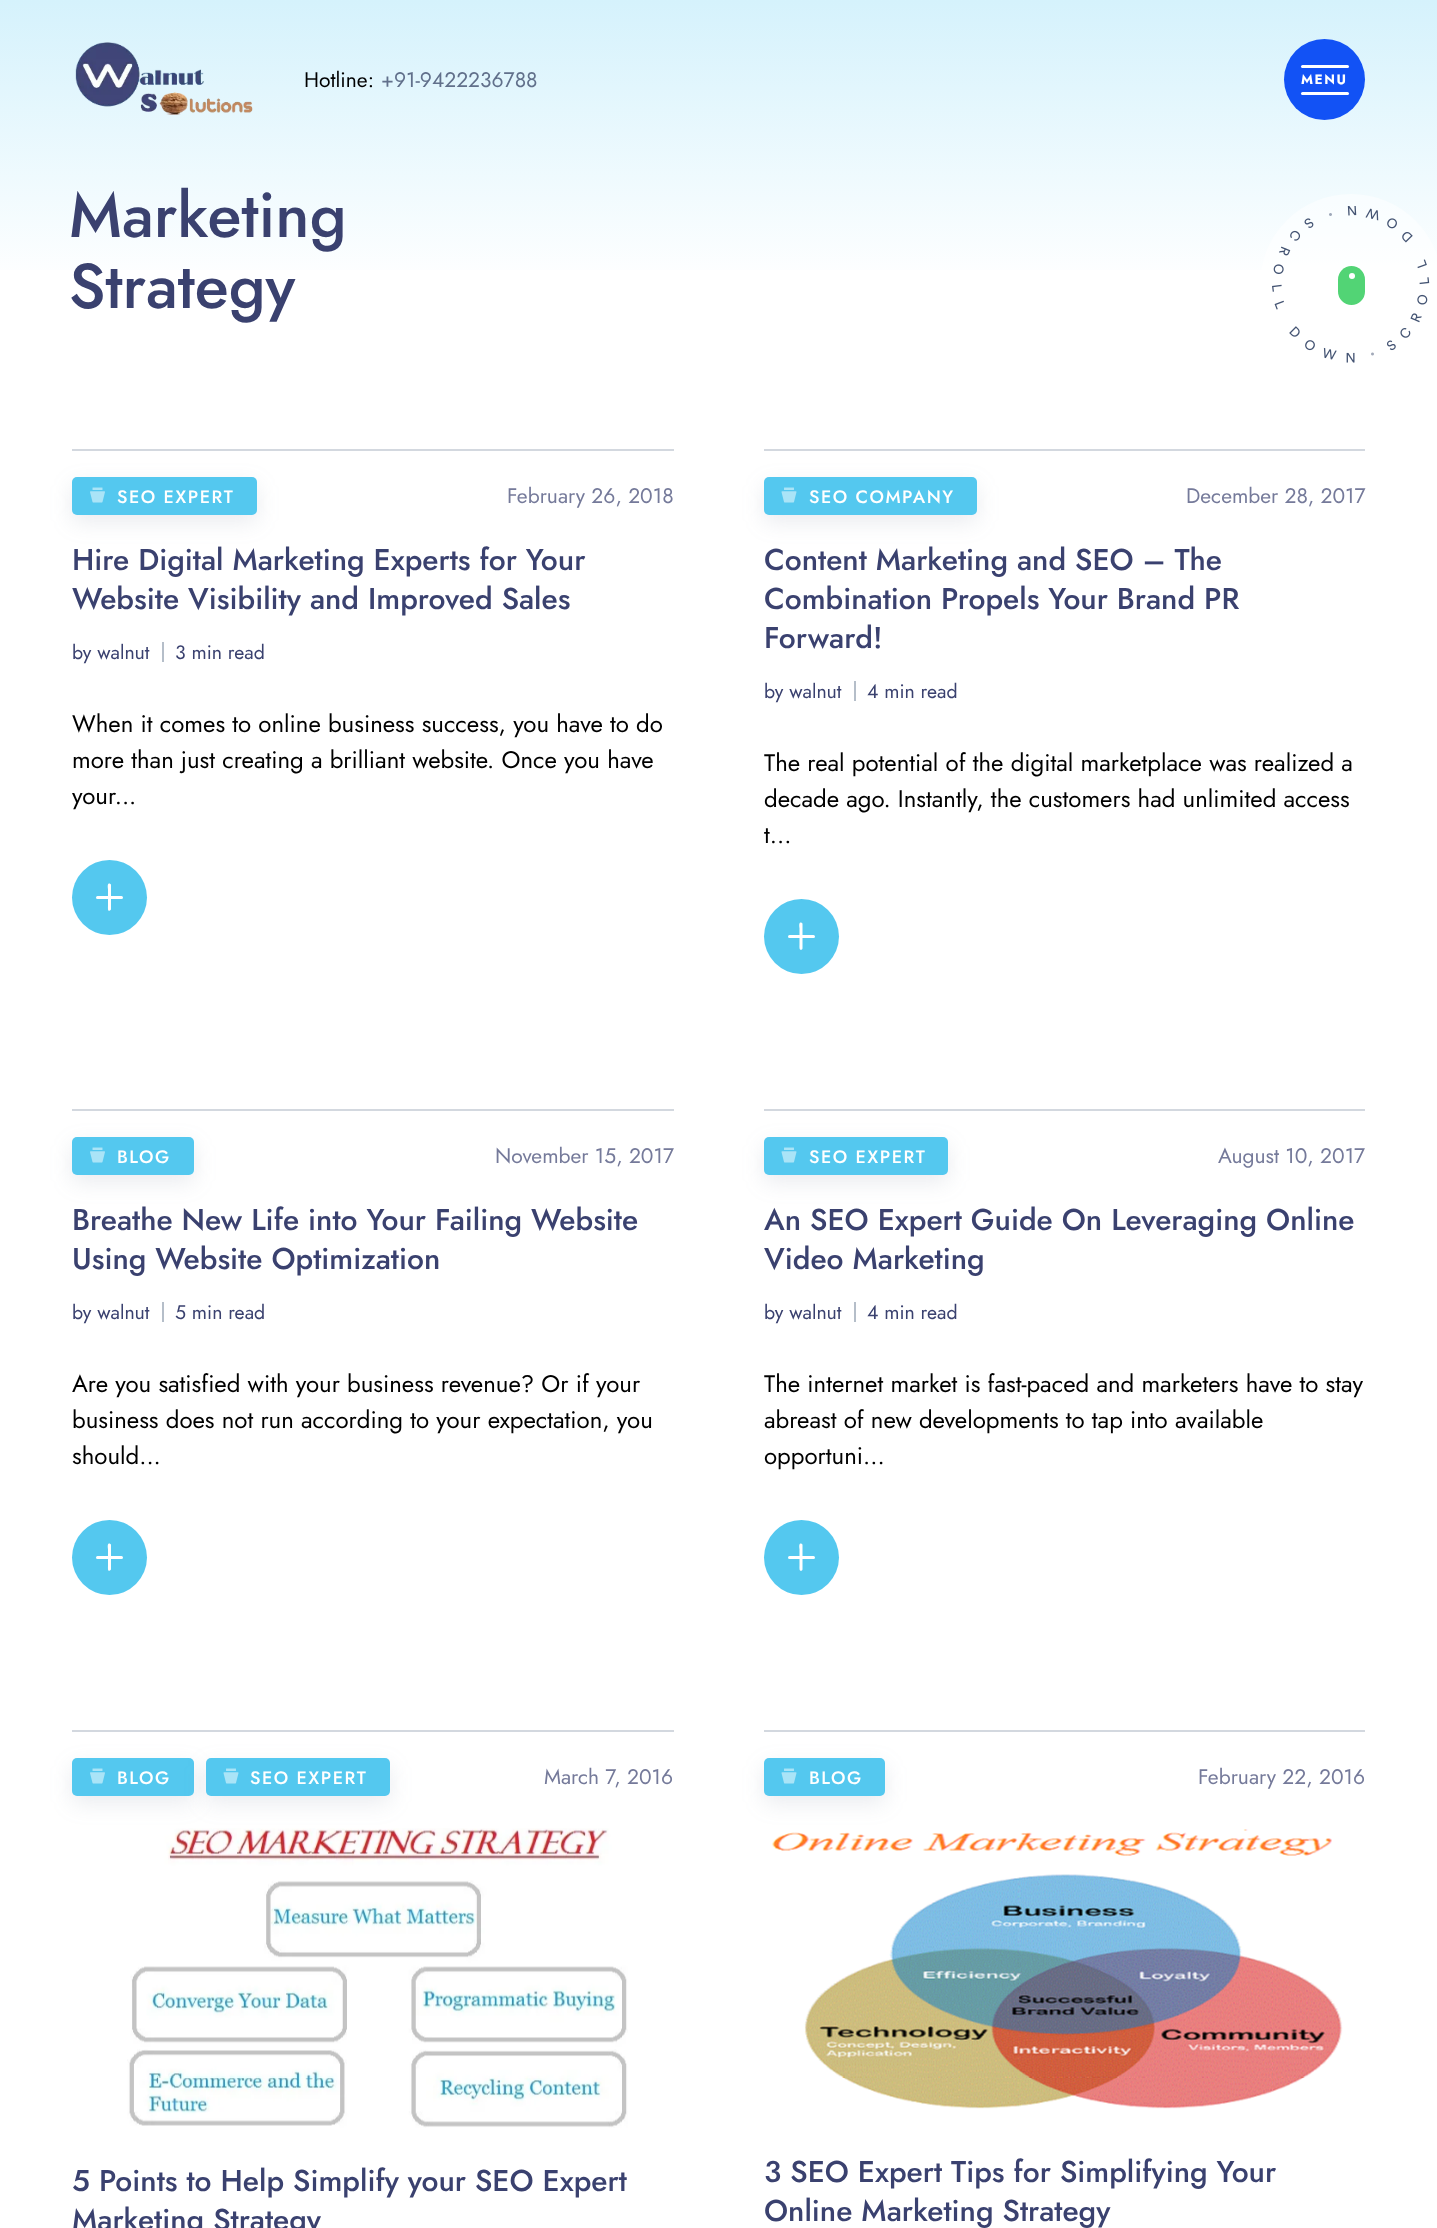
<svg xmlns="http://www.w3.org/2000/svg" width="1437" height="2228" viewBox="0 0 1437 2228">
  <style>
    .t1 { font: 21px Jost; fill: #000; }
    .t2 { font: 21px Jost; fill: #61708b; }
    .t3 { font: bold 13.5px Jost; letter-spacing: 1.5px; fill: #fff; }
    .t4 { font: 500 63px Jost; fill: #3a416f; }
    .t5 { font: 500 18px Jost; letter-spacing: 1.5px; fill: #fff; }
    .t6 { font: 21px Jost; fill: #757a9a; }
    .t7 { font: 500 30px Jost; fill: #3a416f; }
    .t8 { font: 19.5px Jost; fill: #3a416f; }
    .t9 { font: 24px Jost; fill: #000; }
  </style>
  <defs>
    <linearGradient id="g1" gradientUnits="userSpaceOnUse" x1="719" y1="287" x2="719" y2="0"><stop offset="0" stop-color="#fff"/><stop offset="1" stop-color="#d5f2fc"/></linearGradient>
  </defs>
  <rect width="100%" height="100%" fill="#fff"/>
  <rect x="0" y="0" width="1437" height="270" fill="url(#g1)"/>
  <image x="75" y="42" width="178" height="73" href="images/1.png"/>
  <text x="304" y="87" class="t1">Hotline:</text>
  <text x="381" y="87" class="t2">+91-9422236788</text>
  <circle cx="1324.5" cy="79.5" r="40.5" fill="#1252f5"/>
  <rect x="1301" y="65" width="48" height="3" rx="1.5" fill="#fff"/>
  <rect x="1301" y="92" width="48" height="3" rx="1.5" fill="#fff"/>
  <text x="1301" y="84" class="t3">MENU</text>
  <text x="69" y="237" class="t4">Marketing</text>
  <text x="69" y="308" class="t4">Strategy</text>
  <rect x="1260" y="194" width="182" height="181" rx="90.5" fill="#ffffff80"/>
  <rect x="1338" y="266" width="27" height="39" rx="13.5" fill="#52d475"/>
  <circle cx="1352" cy="276" r="3" fill="#fff"/>
  <image x="1272" y="206" width="158" height="157" href="images/2.png"/>
  <rect x="72" y="449" width="602" height="2" fill="#d3d8df"/>
  <rect x="72" y="485" width="185" height="37" rx="5" fill="#6b7c9326" filter="blur(11px)"/>
  <rect x="72" y="477" width="185" height="38" rx="5" fill="#54c8ef"/>
  <image x="90" y="487" width="15" height="16" href="images/3.png"/>
  <text x="117" y="503" class="t5">SEO EXPERT</text>
  <text x="507" y="503" class="t6">February 26, 2018</text>
  <text x="72" y="570" class="t7">Hire Digital Marketing Experts for Your</text>
  <text x="72" y="609" class="t7">Website Visibility and Improved Sales</text>
  <text x="72" y="659" class="t8">by walnut</text>
  <rect x="162" y="642" width="2" height="20" fill="#b5bec9"/>
  <text x="175" y="659" class="t8">3 min read</text>
  <text x="72" y="732" class="t9">When it comes to online business success, you have to do</text>
  <text x="72" y="768" class="t9">more than just creating a brilliant website. Once you have</text>
  <text x="72" y="804" class="t9">your...</text>
  <circle cx="109.5" cy="897.5" r="37.5" fill="#54c8ef"/>
  <path d="M111 885V909.5L110 910.5C107.5 912 108 908 108 905V889C108 888.5 107 884 109 883.5C110 883.5 111 884 111 885Z" fill="#fff"/>
  <rect x="96" y="896" width="27" height="3" rx="1.5" fill="#fff"/>
  <rect x="764" y="449" width="601" height="2" fill="#d3d8df"/>
  <rect x="764" y="485" width="213" height="37" rx="5" fill="#6b7c9326" filter="blur(11px)"/>
  <rect x="764" y="477" width="213" height="38" rx="5" fill="#54c8ef"/>
  <image x="781" y="487" width="16" height="16" href="images/4.png"/>
  <text x="809" y="503" class="t5">SEO COMPANY</text>
  <text x="1186" y="503" class="t6">December 28, 2017</text>
  <text x="764" y="570" class="t7">Content Marketing and SEO – The</text>
  <text x="764" y="609" class="t7">Combination Propels Your Brand PR</text>
  <text x="764" y="648" class="t7">Forward!</text>
  <text x="764" y="698" class="t8">by walnut</text>
  <rect x="854" y="681" width="2" height="20" fill="#b5bec9"/>
  <text x="867" y="698" class="t8">4 min read</text>
  <text x="764" y="771" class="t9">The real potential of the digital marketplace was realized a</text>
  <text x="764" y="807" class="t9">decade ago. Instantly, the customers had unlimited access</text>
  <text x="764" y="843" class="t9">t...</text>
  <circle cx="801.5" cy="936.5" r="37.5" fill="#54c8ef"/>
  <path d="M802.5 924V948.5L802 949.5C799 951 799.5 947 799.5 944V928C799.5 927.5 798.5 923 800.5 922.5C801.5 922.5 802.5 923 802.5 924Z" fill="#fff"/>
  <rect x="788" y="935" width="27" height="3" rx="1.5" fill="#fff"/>
  <rect x="72" y="1109" width="602" height="2" fill="#d3d8df"/>
  <rect x="72" y="1145" width="122" height="37" rx="5" fill="#6b7c9326" filter="blur(11px)"/>
  <rect x="72" y="1137" width="122" height="38" rx="5" fill="#54c8ef"/>
  <image x="90" y="1147" width="15" height="16" href="images/3.png"/>
  <text x="117" y="1163" class="t5">BLOG</text>
  <text x="495" y="1163" class="t6">November 15, 2017</text>
  <text x="72" y="1230" class="t7">Breathe New Life into Your Failing Website</text>
  <text x="72" y="1269" class="t7">Using Website Optimization</text>
  <text x="72" y="1319" class="t8">by walnut</text>
  <rect x="162" y="1302" width="2" height="20" fill="#b5bec9"/>
  <text x="175" y="1319" class="t8">5 min read</text>
  <text x="72" y="1392" class="t9">Are you satisfied with your business revenue? Or if your</text>
  <text x="72" y="1428" class="t9">business does not run according to your expectation, you</text>
  <text x="72" y="1464" class="t9">should...</text>
  <circle cx="109.5" cy="1557.5" r="37.5" fill="#54c8ef"/>
  <path d="M111 1545V1569.5L110 1570.5C107.5 1572 108 1568 108 1565V1549C108 1548.5 107 1544 109 1543.5C110 1543.5 111 1544 111 1545Z" fill="#fff"/>
  <rect x="96" y="1556" width="27" height="3" rx="1.5" fill="#fff"/>
  <rect x="764" y="1109" width="601" height="2" fill="#d3d8df"/>
  <rect x="764" y="1145" width="184" height="37" rx="5" fill="#6b7c9326" filter="blur(11px)"/>
  <rect x="764" y="1137" width="184" height="38" rx="5" fill="#54c8ef"/>
  <image x="781" y="1147" width="16" height="16" href="images/4.png"/>
  <text x="809" y="1163" class="t5">SEO EXPERT</text>
  <text x="1218" y="1163" class="t6">August 10, 2017</text>
  <text x="764" y="1230" class="t7">An SEO Expert Guide On Leveraging Online</text>
  <text x="764" y="1269" class="t7">Video Marketing</text>
  <text x="764" y="1319" class="t8">by walnut</text>
  <rect x="854" y="1302" width="2" height="20" fill="#b5bec9"/>
  <text x="867" y="1319" class="t8">4 min read</text>
  <text x="764" y="1392" class="t9">The internet market is fast-paced and marketers have to stay</text>
  <text x="764" y="1428" class="t9">abreast of new developments to tap into available</text>
  <text x="764" y="1464" class="t9">opportuni...</text>
  <circle cx="801.5" cy="1557.5" r="37.5" fill="#54c8ef"/>
  <path d="M802.5 1545V1569.5L802 1570.5C799 1572 799.5 1568 799.5 1565V1549C799.5 1548.5 798.5 1544 800.5 1543.5C801.5 1543.5 802.5 1544 802.5 1545Z" fill="#fff"/>
  <rect x="788" y="1556" width="27" height="3" rx="1.5" fill="#fff"/>
  <rect x="72" y="1730" width="602" height="2" fill="#d3d8df"/>
  <rect x="72" y="1766" width="122" height="37" rx="5" fill="#6b7c9326" filter="blur(11px)"/>
  <rect x="72" y="1758" width="122" height="38" rx="5" fill="#54c8ef"/>
  <image x="90" y="1768" width="15" height="16" href="images/3.png"/>
  <text x="117" y="1784" class="t5">BLOG</text>
  <rect x="206" y="1766" width="184" height="37" rx="5" fill="#6b7c9326" filter="blur(11px)"/>
  <rect x="206" y="1758" width="184" height="38" rx="5" fill="#54c8ef"/>
  <image x="223" y="1768" width="16" height="16" href="images/4.png"/>
  <text x="250" y="1784" class="t5">SEO EXPERT</text>
  <text x="544" y="1784" class="t6">March 7, 2016</text>
  <image x="127" y="1828" width="501" height="300" href="images/5.png"/>
  <text x="72" y="2191" class="t7">5 Points to Help Simplify your SEO Expert</text>
  <text x="72" y="2230" class="t7">Marketing Strategy</text>
  <rect x="764" y="1730" width="601" height="2" fill="#d3d8df"/>
  <rect x="764" y="1766" width="121" height="37" rx="5" fill="#6b7c9326" filter="blur(11px)"/>
  <rect x="764" y="1758" width="121" height="38" rx="5" fill="#54c8ef"/>
  <image x="781" y="1768" width="16" height="16" href="images/4.png"/>
  <text x="809" y="1784" class="t5">BLOG</text>
  <text x="1198" y="1784" class="t6">February 22, 2016</text>
  <image x="772" y="1829" width="571" height="280" href="images/6.png"/>
  <text x="764" y="2182" class="t7">3 SEO Expert Tips for Simplifying Your</text>
  <text x="764" y="2221" class="t7">Online Marketing Strategy</text>
</svg>
